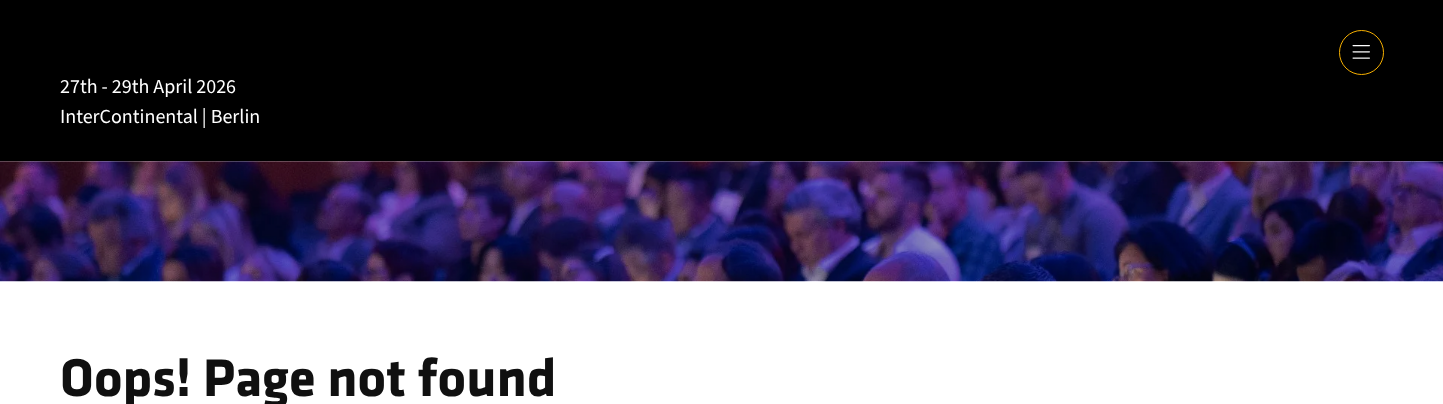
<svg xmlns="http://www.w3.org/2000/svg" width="1443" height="404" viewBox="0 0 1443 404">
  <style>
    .t1 { font: 20px Source Sans Pro; fill: #fff; }
    .t2 { font: bold 55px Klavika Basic; fill: #101010; }
  </style>
  <rect width="100%" height="100%" fill="#fff"/>
  <rect x="0" y="0" width="1443" height="161" fill="#000"/>
  <circle cx="1361.5" cy="52.5" r="22" fill="none" stroke="#f7b000"/>
  <image x="1352" y="45" width="18" height="14" href="images/1.png"/>
  <text x="60" y="93" class="t1">27th - 29th April 2026</text>
  <text x="60" y="123" class="t1">InterContinental | Berlin</text>
  <image x="0" y="161" width="1443" height="121" href="images/2.png"/>
  <text x="60" y="396" class="t2">Oops! Page not found</text>
</svg>
